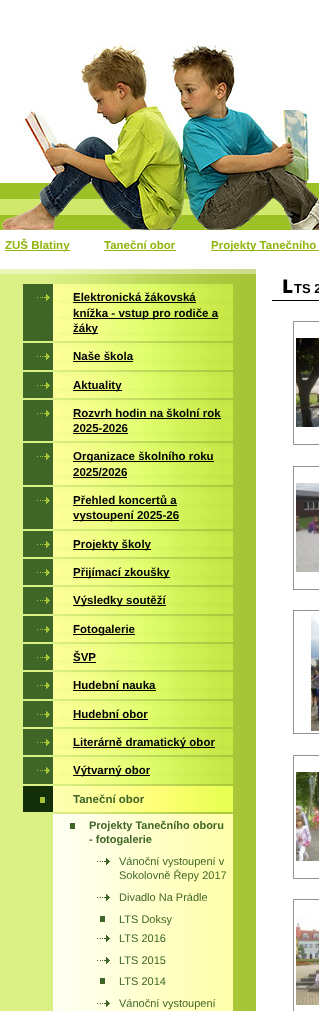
<svg xmlns="http://www.w3.org/2000/svg" width="319" height="1011" viewBox="0 0 319 1011">
  <style>
    .t1 { font: bold 11.5px Liberation Sans; fill: #91b511; }
    .t2 { font: 900 19px Noto Sans; fill: #000; }
    .t3 { font: bold 13px Liberation Sans; fill: #000; }
    .t4 { font: bold 11.5px Liberation Sans; fill: #000; }
    .t5 { font: bold 11.5px Liberation Sans; fill: #406627; }
    .t6 { font: bold 11px Liberation Sans; fill: #406627; }
    .t7 { font: 11px Liberation Sans; fill: #406627; }
  </style>
  <rect width="100%" height="100%" fill="#fff"/>
  <image x="0" y="269" width="256" height="5" href="images/1.png"/>
  <image x="0" y="0" width="319" height="230" href="images/2.png"/>
  <rect x="280" y="96" width="24" height="14" fill="#fff"/>
  <rect x="5" y="250" width="65" height="1" fill="#91b511"/>
  <text x="5" y="249" class="t1">ZUŠ Blatiny</text>
  <text x="104" y="249" class="t1">Taneční obor</text>
  <rect x="104" y="250" width="72" height="1" fill="#91b511"/>
  <rect x="211" y="250" width="108" height="1" fill="#91b511"/>
  <text x="211" y="249" class="t1">Projekty Tanečního</text>
  <rect x="272" y="300" width="47" height="1" fill="#000"/>
  <text x="282" y="293" class="t2">L</text>
  <text x="294" y="293" class="t3">TS 2</text>
  <rect x="293.5" y="321.5" width="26" height="123" fill="none" stroke="#939393"/>
  <image x="296" y="338" width="23" height="89" href="images/3.png"/>
  <rect x="293.5" y="466.5" width="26" height="123" fill="none" stroke="#939393"/>
  <image x="296" y="483" width="23" height="89" href="images/4.png"/>
  <rect x="293.5" y="610.5" width="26" height="123" fill="none" stroke="#939393"/>
  <image x="311" y="613" width="8" height="118" href="images/5.png"/>
  <rect x="293.5" y="755.5" width="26" height="123" fill="none" stroke="#939393"/>
  <image x="296" y="772" width="23" height="89" href="images/6.png"/>
  <rect x="293.5" y="899.5" width="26" height="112" fill="none" stroke="#939393"/>
  <image x="296" y="916" width="23" height="89" href="images/7.png"/>
  <image x="0" y="274" width="256" height="737" href="images/8.png"/>
  <image x="23" y="284" width="210" height="57" href="images/9.png"/>
  <image x="37" y="294" width="13" height="7" href="images/10.png"/>
  <text x="73" y="301" class="t4">Elektronická žákovská</text>
  <rect x="73" y="302" width="123" height="1" fill="#000"/>
  <rect x="73" y="318" width="145" height="1" fill="#000"/>
  <text x="73" y="317" class="t4">knížka - vstup pro rodiče a</text>
  <rect x="73" y="333" width="25" height="1" fill="#000"/>
  <text x="73" y="332" class="t4">žáky</text>
  <image x="23" y="343" width="210" height="27" href="images/11.png"/>
  <image x="37" y="353" width="13" height="7" href="images/10.png"/>
  <text x="73" y="360" class="t4">Naše škola</text>
  <rect x="73" y="361" width="60" height="1" fill="#000"/>
  <image x="23" y="372" width="210" height="26" href="images/12.png"/>
  <image x="37" y="382" width="13" height="7" href="images/10.png"/>
  <rect x="73" y="390" width="49" height="1" fill="#000"/>
  <text x="73" y="389" class="t4">Aktuality</text>
  <image x="23" y="400" width="210" height="41" href="images/13.png"/>
  <image x="37" y="410" width="13" height="7" href="images/10.png"/>
  <text x="73" y="417" class="t4">Rozvrh hodin na školní rok</text>
  <rect x="73" y="418" width="148" height="1" fill="#000"/>
  <text x="73" y="432" class="t4">2025-2026</text>
  <rect x="73" y="433" width="55" height="1" fill="#000"/>
  <image x="23" y="443" width="210" height="42" href="images/14.png"/>
  <image x="37" y="453" width="13" height="7" href="images/10.png"/>
  <rect x="73" y="461" width="141" height="1" fill="#000"/>
  <text x="73" y="460" class="t4">Organizace školního roku</text>
  <text x="73" y="476" class="t4">2025/2026</text>
  <rect x="73" y="477" width="54" height="1" fill="#000"/>
  <image x="23" y="487" width="210" height="42" href="images/14.png"/>
  <image x="37" y="497" width="13" height="7" href="images/10.png"/>
  <text x="73" y="504" class="t4">Přehled koncertů a</text>
  <rect x="73" y="505" width="104" height="1" fill="#000"/>
  <rect x="73" y="520" width="106" height="1" fill="#000"/>
  <text x="73" y="519" class="t4">vystoupení 2025-26</text>
  <image x="23" y="531" width="210" height="26" href="images/12.png"/>
  <image x="37" y="541" width="13" height="7" href="images/10.png"/>
  <rect x="73" y="549" width="78" height="1" fill="#000"/>
  <text x="73" y="548" class="t4">Projekty školy</text>
  <image x="23" y="559" width="210" height="26" href="images/12.png"/>
  <image x="37" y="569" width="13" height="7" href="images/10.png"/>
  <rect x="73" y="577" width="97" height="1" fill="#000"/>
  <text x="73" y="576" class="t4">Přijímací zkoušky</text>
  <image x="23" y="587" width="210" height="27" href="images/11.png"/>
  <image x="37" y="597" width="13" height="7" href="images/10.png"/>
  <rect x="73" y="605" width="93" height="1" fill="#000"/>
  <text x="73" y="604" class="t4">Výsledky soutěží</text>
  <image x="23" y="616" width="210" height="26" href="images/12.png"/>
  <image x="37" y="626" width="13" height="7" href="images/10.png"/>
  <rect x="73" y="634" width="62" height="1" fill="#000"/>
  <text x="73" y="633" class="t4">Fotogalerie</text>
  <image x="23" y="644" width="210" height="26" href="images/12.png"/>
  <image x="37" y="654" width="13" height="7" href="images/10.png"/>
  <text x="73" y="661" class="t4">ŠVP</text>
  <rect x="73" y="662" width="23" height="1" fill="#000"/>
  <image x="23" y="672" width="210" height="27" href="images/11.png"/>
  <image x="37" y="682" width="13" height="7" href="images/10.png"/>
  <text x="73" y="689" class="t4">Hudební nauka</text>
  <rect x="73" y="690" width="83" height="1" fill="#000"/>
  <image x="23" y="701" width="210" height="26" href="images/12.png"/>
  <image x="37" y="711" width="13" height="7" href="images/10.png"/>
  <text x="73" y="718" class="t4">Hudební obor</text>
  <rect x="73" y="719" width="75" height="1" fill="#000"/>
  <image x="23" y="729" width="210" height="26" href="images/12.png"/>
  <image x="37" y="739" width="13" height="7" href="images/10.png"/>
  <rect x="73" y="747" width="142" height="1" fill="#000"/>
  <text x="73" y="746" class="t4">Literárně dramatický obor</text>
  <image x="23" y="757" width="210" height="27" href="images/11.png"/>
  <image x="37" y="767" width="13" height="7" href="images/10.png"/>
  <rect x="73" y="775" width="77" height="1" fill="#000"/>
  <text x="73" y="774" class="t4">Výtvarný obor</text>
  <image x="23" y="786" width="210" height="26" href="images/15.png"/>
  <rect x="40" y="797" width="5" height="6" fill="#a7c436"/>
  <text x="73" y="803" class="t5">Taneční obor</text>
  <rect x="53" y="814" width="1" height="197" fill="#fff"/>
  <image x="54" y="814" width="179" height="197" href="images/16.png"/>
  <rect x="70" y="823" width="5" height="6" fill="#406627"/>
  <text x="89" y="829" class="t6">Projekty Tanečního oboru</text>
  <text x="89" y="843" class="t6">- fotogalerie</text>
  <image x="97" y="858" width="13" height="7" href="images/17.png"/>
  <text x="119" y="865" class="t7">Vánoční vystoupení v</text>
  <text x="119" y="879" class="t7">Sokolovně Řepy 2017</text>
  <image x="97" y="894" width="13" height="7" href="images/17.png"/>
  <text x="119" y="901" class="t7">Divadlo Na Prádle</text>
  <rect x="100" y="916" width="5" height="6" fill="#406627"/>
  <text x="119" y="923" class="t7">LTS Doksy</text>
  <image x="97" y="935" width="13" height="7" href="images/17.png"/>
  <text x="119" y="942" class="t7">LTS 2016</text>
  <image x="97" y="957" width="13" height="7" href="images/17.png"/>
  <text x="119" y="964" class="t7">LTS 2015</text>
  <rect x="100" y="978" width="5" height="6" fill="#406627"/>
  <text x="119" y="985" class="t7">LTS 2014</text>
  <image x="97" y="1000" width="13" height="7" href="images/17.png"/>
  <text x="119" y="1007" class="t7">Vánoční vystoupení</text>
</svg>
